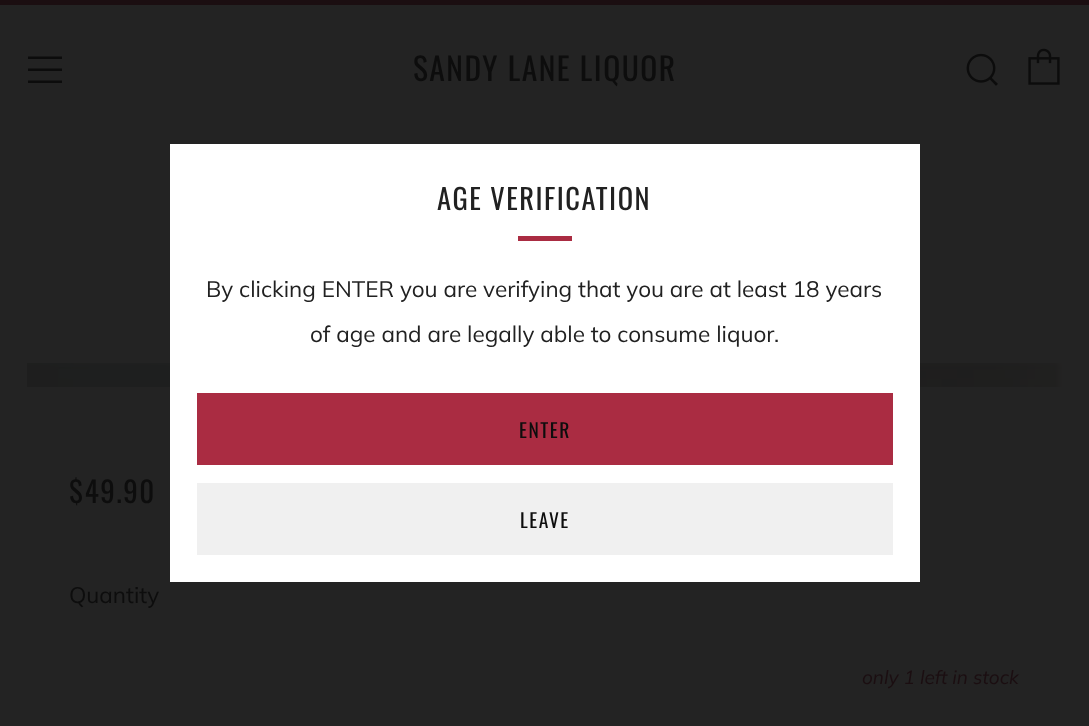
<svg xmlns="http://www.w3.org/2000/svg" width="1089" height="726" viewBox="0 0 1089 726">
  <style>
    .t1 { font: 31.5px Oswald; letter-spacing: 1.5px; fill: #0d0d0d; }
    .t2 { font: 29px Oswald; letter-spacing: 1.5px; fill: #0d0d0d; }
    .t3 { font: 22.5px Muli; fill: #0d0d0d; }
    .t4 { font: italic 19px Muli; fill: #1b0e11; }
    .t5 { font: 28.5px Oswald; letter-spacing: 1.5px; fill: #212121; }
    .t6 { font: 22.5px Muli; fill: #212121; }
    .t7 { font: 19.5px Oswald; letter-spacing: 1.5px; fill: #0d0d0d; }
  </style>
  <rect width="100%" height="100%" fill="#232323"/>
  <rect x="0" y="0" width="1089" height="5" fill="#1b0e11"/>
  <path d="M28 59H62V56.5H28ZM28 83H62V80.5H28ZM28 71H62V68.5H28Z" fill="#0c0c0c"/>
  <text x="413" y="81" class="t1">SANDY LANE LIQUOR</text>
  <image x="966" y="53" width="32" height="33" href="images/1.png"/>
  <image x="1028" y="48" width="32" height="37" href="images/2.png"/>
  <image x="27" y="363" width="1035" height="24" href="images/3.png"/>
  <text x="69" y="503" class="t2">$49.90</text>
  <text x="69" y="603" class="t3">Quantity</text>
  <text x="862" y="684" class="t4">only 1 left in stock</text>
  <rect x="170" y="144" width="750" height="438" fill="#fff"/>
  <text x="437" y="210" class="t5">AGE VERIFICATION</text>
  <rect x="518" y="236" width="54" height="5" fill="#aa2c42"/>
  <text x="206" y="297" class="t6">By clicking ENTER you are verifying that you are at least 18 years</text>
  <text x="310" y="342" class="t6">of age and are legally able to consume liquor.</text>
  <rect x="197" y="393" width="696" height="72" fill="#aa2c42"/>
  <text x="519" y="438" class="t7">ENTER</text>
  <rect x="197" y="483" width="696" height="72" fill="#f0f0f0"/>
  <text x="520" y="528" class="t7">LEAVE</text>
</svg>
